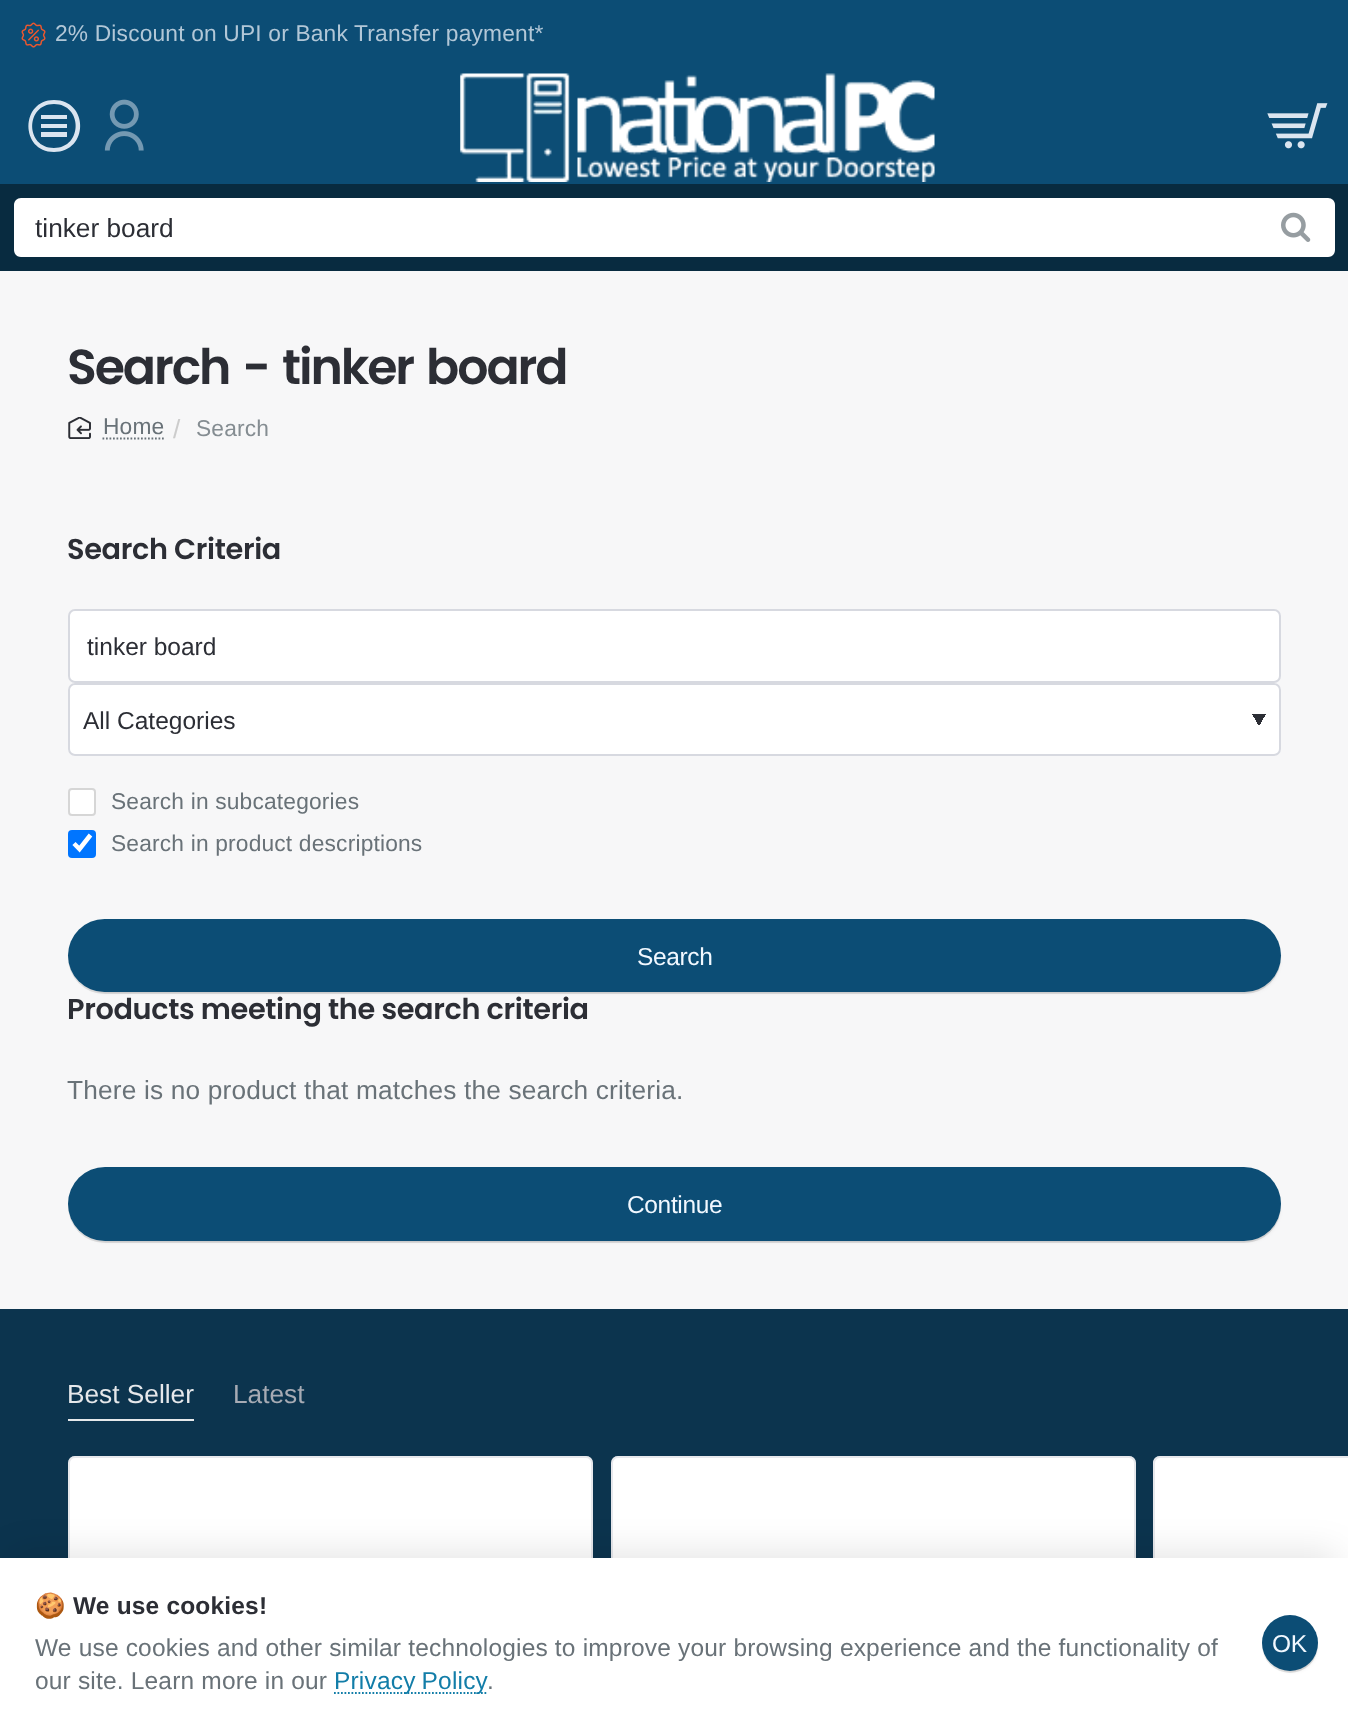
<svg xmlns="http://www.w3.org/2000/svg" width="1348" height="1729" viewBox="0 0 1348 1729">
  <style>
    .t1 { font: 22.75px Liberation Sans; letter-spacing: 0.18px; fill: #b2c7d7; }
    .t2 { font: 26.25px Liberation Sans; fill: #2c2e35; }
    .t3 { font: 600 49px Poppins; letter-spacing: -2.1px; fill: #2c2e35; }
    .t4 { font: 22.75px Liberation Sans; letter-spacing: 0.18px; fill: #697278; }
    .t5 { font: 26.25px Liberation Sans; letter-spacing: 0.18px; fill: #ccc; }
    .t6 { font: 22.75px Liberation Sans; letter-spacing: 0.18px; fill: #858d92; }
    .t7 { font: 600 28.75px Poppins; letter-spacing: -0.35px; fill: #2c2e35; }
    .t8 { font: 24.5px Liberation Sans; fill: #2c2e35; }
    .t9 { font: 24.5px Liberation Sans; letter-spacing: -0.35px; fill: #f1f8ff; }
    .t10 { font: 26.25px Liberation Sans; letter-spacing: 0.18px; fill: #697278; }
    .t11 { font: 26.25px Liberation Sans; fill: #e6e8eb; }
    .t12 { font: 26.25px Liberation Sans; fill: #a7abb4; }
    .t13 { font: bold 24.5px Noto Color Emoji; letter-spacing: 0.18px; fill: #2c2e35; }
    .t14 { font: bold 24.5px Liberation Sans; letter-spacing: 0.18px; fill: #2c2e35; }
    .t15 { font: 24.5px Liberation Sans; letter-spacing: 0.18px; fill: #697278; }
    .t16 { font: 24.5px Liberation Sans; letter-spacing: 0.18px; fill: #127da8; }
  </style>
  <defs>
    <linearGradient id="g1" gradientUnits="userSpaceOnUse" x1="1271" y1="712" x2="1247" y2="726"><stop offset="0.63" stop-color="#2c2e35"/><stop offset="0.63" stop-color="#fff"/></linearGradient>
    <linearGradient id="g2" gradientUnits="userSpaceOnUse" x1="1247" y1="712" x2="1271" y2="726"><stop offset="0.63" stop-color="#fff" stop-opacity="0"/><stop offset="0.63" stop-color="#fff"/></linearGradient>
  </defs>
  <rect width="100%" height="100%" fill="#f7f7f8"/>
  <rect x="0" y="0" width="1348" height="184" fill="#0c4d75"/>
  <image x="21" y="22" width="25" height="26" href="images/1.png"/>
  <text x="55" y="41" class="t1">2% Discount on UPI or Bank Transfer payment*</text>
  <path d="M54 104C83 104 83 148 54 148C25 148 25 104 54 104ZM54 100C20 100 20 152 54 152C89 152 89 100 54 100ZM67 137H41V132H67ZM67 128H41V124H67ZM67 119H41V115H67Z" fill="#dbe5f0"/>
  <image x="104" y="99" width="40" height="52" href="images/2.png"/>
  <image x="460" y="73" width="475" height="109" href="images/3.png"/>
  <image x="1267" y="103" width="61" height="46" href="images/4.png"/>
  <rect x="0" y="184" width="1348" height="87" fill="#082b40"/>
  <path d="M21 198H1257V257H21C17 257 14 254 14 250V205C14 201 17 198 21 198Z" fill="#fff"/>
  <text x="35" y="237" class="t2">tinker board</text>
  <path d="M1257 198H1328C1332 198 1335 201 1335 205V250C1335 254 1332 257 1328 257H1257Z" fill="#fff"/>
  <image x="1281" y="212" width="30" height="30" href="images/5.png"/>
  <text x="67" y="384" word-spacing="3.5" class="t3">Search - tinker board</text>
  <image x="68" y="417" width="23" height="22" href="images/6.png"/>
  <path d="M102.5 438.5H164M102.5 438.5H164" fill="none" stroke="#697278" stroke-width="1.8" stroke-dasharray="1.75 1.75"/>
  <text x="103" y="434" class="t4">Home</text>
  <text x="173" y="438" class="t5">/</text>
  <text x="196" y="436" class="t6">Search</text>
  <text x="67" y="559" class="t7">Search Criteria</text>
  <rect x="69" y="610" width="1211" height="72" rx="6" fill="#fff" stroke="#d7d9e0" stroke-width="2"/>
  <text x="87" y="655" class="t8">tinker board</text>
  <rect x="68" y="683" width="1213" height="73" rx="7" fill="#fff"/>
  <rect x="1252" y="714" width="14" height="11" fill="url(#g1)"/>
  <rect x="1260" y="715" width="6" height="10" fill="url(#g2)"/>
  <rect x="69" y="684" width="1211" height="71" rx="6" fill="none" stroke="#d7d9e0" stroke-width="2"/>
  <text x="83" y="729" class="t8">All Categories</text>
  <rect x="68" y="788" width="28" height="28" rx="4" fill="#fff"/>
  <rect x="69" y="789" width="26" height="26" rx="3" fill="none" stroke="#7676764d" stroke-width="2"/>
  <text x="111" y="809" class="t4">Search in subcategories</text>
  <rect x="68" y="830" width="28" height="28" rx="4" fill="#0075ff"/>
  <path d="M74 843.5L79.5 849L90.5 835" fill="none" stroke="#fff" stroke-width="4.5"/>
  <text x="111" y="851" class="t4">Search in product descriptions</text>
  <rect x="75" y="928" width="1204" height="64" rx="32" fill="#0000001a" filter="blur(2px)"/>
  <rect x="72" y="922" width="1207" height="70" rx="35" fill="#0000001a" filter="blur(1px)"/>
  <rect x="68" y="921" width="1213" height="73" rx="36.5" fill="#0000001a" filter="blur(0.5px)"/>
  <rect x="68" y="919" width="1213" height="73" rx="36.5" fill="#0c4d75"/>
  <text x="637" y="965" class="t9">Search</text>
  <text x="67" y="1019" class="t7">Products meeting the search criteria</text>
  <text x="67" y="1099" class="t10">There is no product that matches the search criteria.</text>
  <rect x="75" y="1176" width="1204" height="65" rx="32.5" fill="#0000001a" filter="blur(2px)"/>
  <rect x="72" y="1171" width="1207" height="70" rx="35" fill="#0000001a" filter="blur(1px)"/>
  <rect x="68" y="1169" width="1213" height="74" rx="37" fill="#0000001a" filter="blur(0.5px)"/>
  <rect x="68" y="1167" width="1213" height="74" rx="37" fill="#0c4d75"/>
  <text x="627" y="1213" class="t9">Continue</text>
  <rect x="0" y="1309" width="1348" height="249" fill="#0c344e"/>
  <rect x="68" y="1419" width="126" height="2" fill="#e6e8eb"/>
  <text x="67" y="1403" class="t11">Best Seller</text>
  <text x="233" y="1403" class="t12">Latest</text>
  <rect x="68" y="1456" width="525" height="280" rx="7" fill="#fff"/>
  <rect x="69" y="1457" width="523" height="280" rx="6" fill="none" stroke="#d7d9e099" stroke-width="2"/>
  <rect x="611" y="1456" width="525" height="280" rx="7" fill="#fff"/>
  <rect x="612" y="1457" width="523" height="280" rx="6" fill="none" stroke="#d7d9e099" stroke-width="2"/>
  <path d="M1160 1456H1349V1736H1160C1156 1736 1153 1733 1153 1729V1463C1153 1459 1156 1456 1160 1456Z" fill="#fff"/>
  <rect x="1154" y="1457" width="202" height="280" rx="6" fill="none" stroke="#d7d9e099" stroke-width="2"/>
  <rect x="12" y="1552" width="1325" height="147" fill="#0000001a" filter="blur(17.5px)"/>
  <rect x="0" y="1558" width="1348" height="171" fill="#fff"/>
  <text x="35" y="1614" class="t13">🍪</text>
  <text x="73" y="1614" class="t14">We use cookies!</text>
  <text x="35" y="1656" class="t15">We use cookies and other similar technologies to improve your browsing experience and the functionality of</text>
  <text x="35" y="1689" class="t15">our site. Learn more in our</text>
  <path d="M334 1693H487" fill="none" stroke="#127da8" stroke-width="1.8" stroke-dasharray="1.75 1.75"/>
  <text x="334" y="1689" word-spacing="-1" class="t16">Privacy Policy</text>
  <text x="487" y="1689" class="t15">.</text>
  <rect x="1269" y="1624" width="47" height="47" rx="23.5" fill="#0000001a" filter="blur(2px)"/>
  <rect x="1265" y="1619" width="51" height="52" rx="25.5" fill="#0000001a" filter="blur(1px)"/>
  <rect x="1262" y="1617" width="56" height="56" rx="28" fill="#0000001a" filter="blur(0.5px)"/>
  <circle cx="1290" cy="1643" r="28" fill="#0c4d75"/>
  <text x="1272" y="1652" class="t9">OK</text>
</svg>
